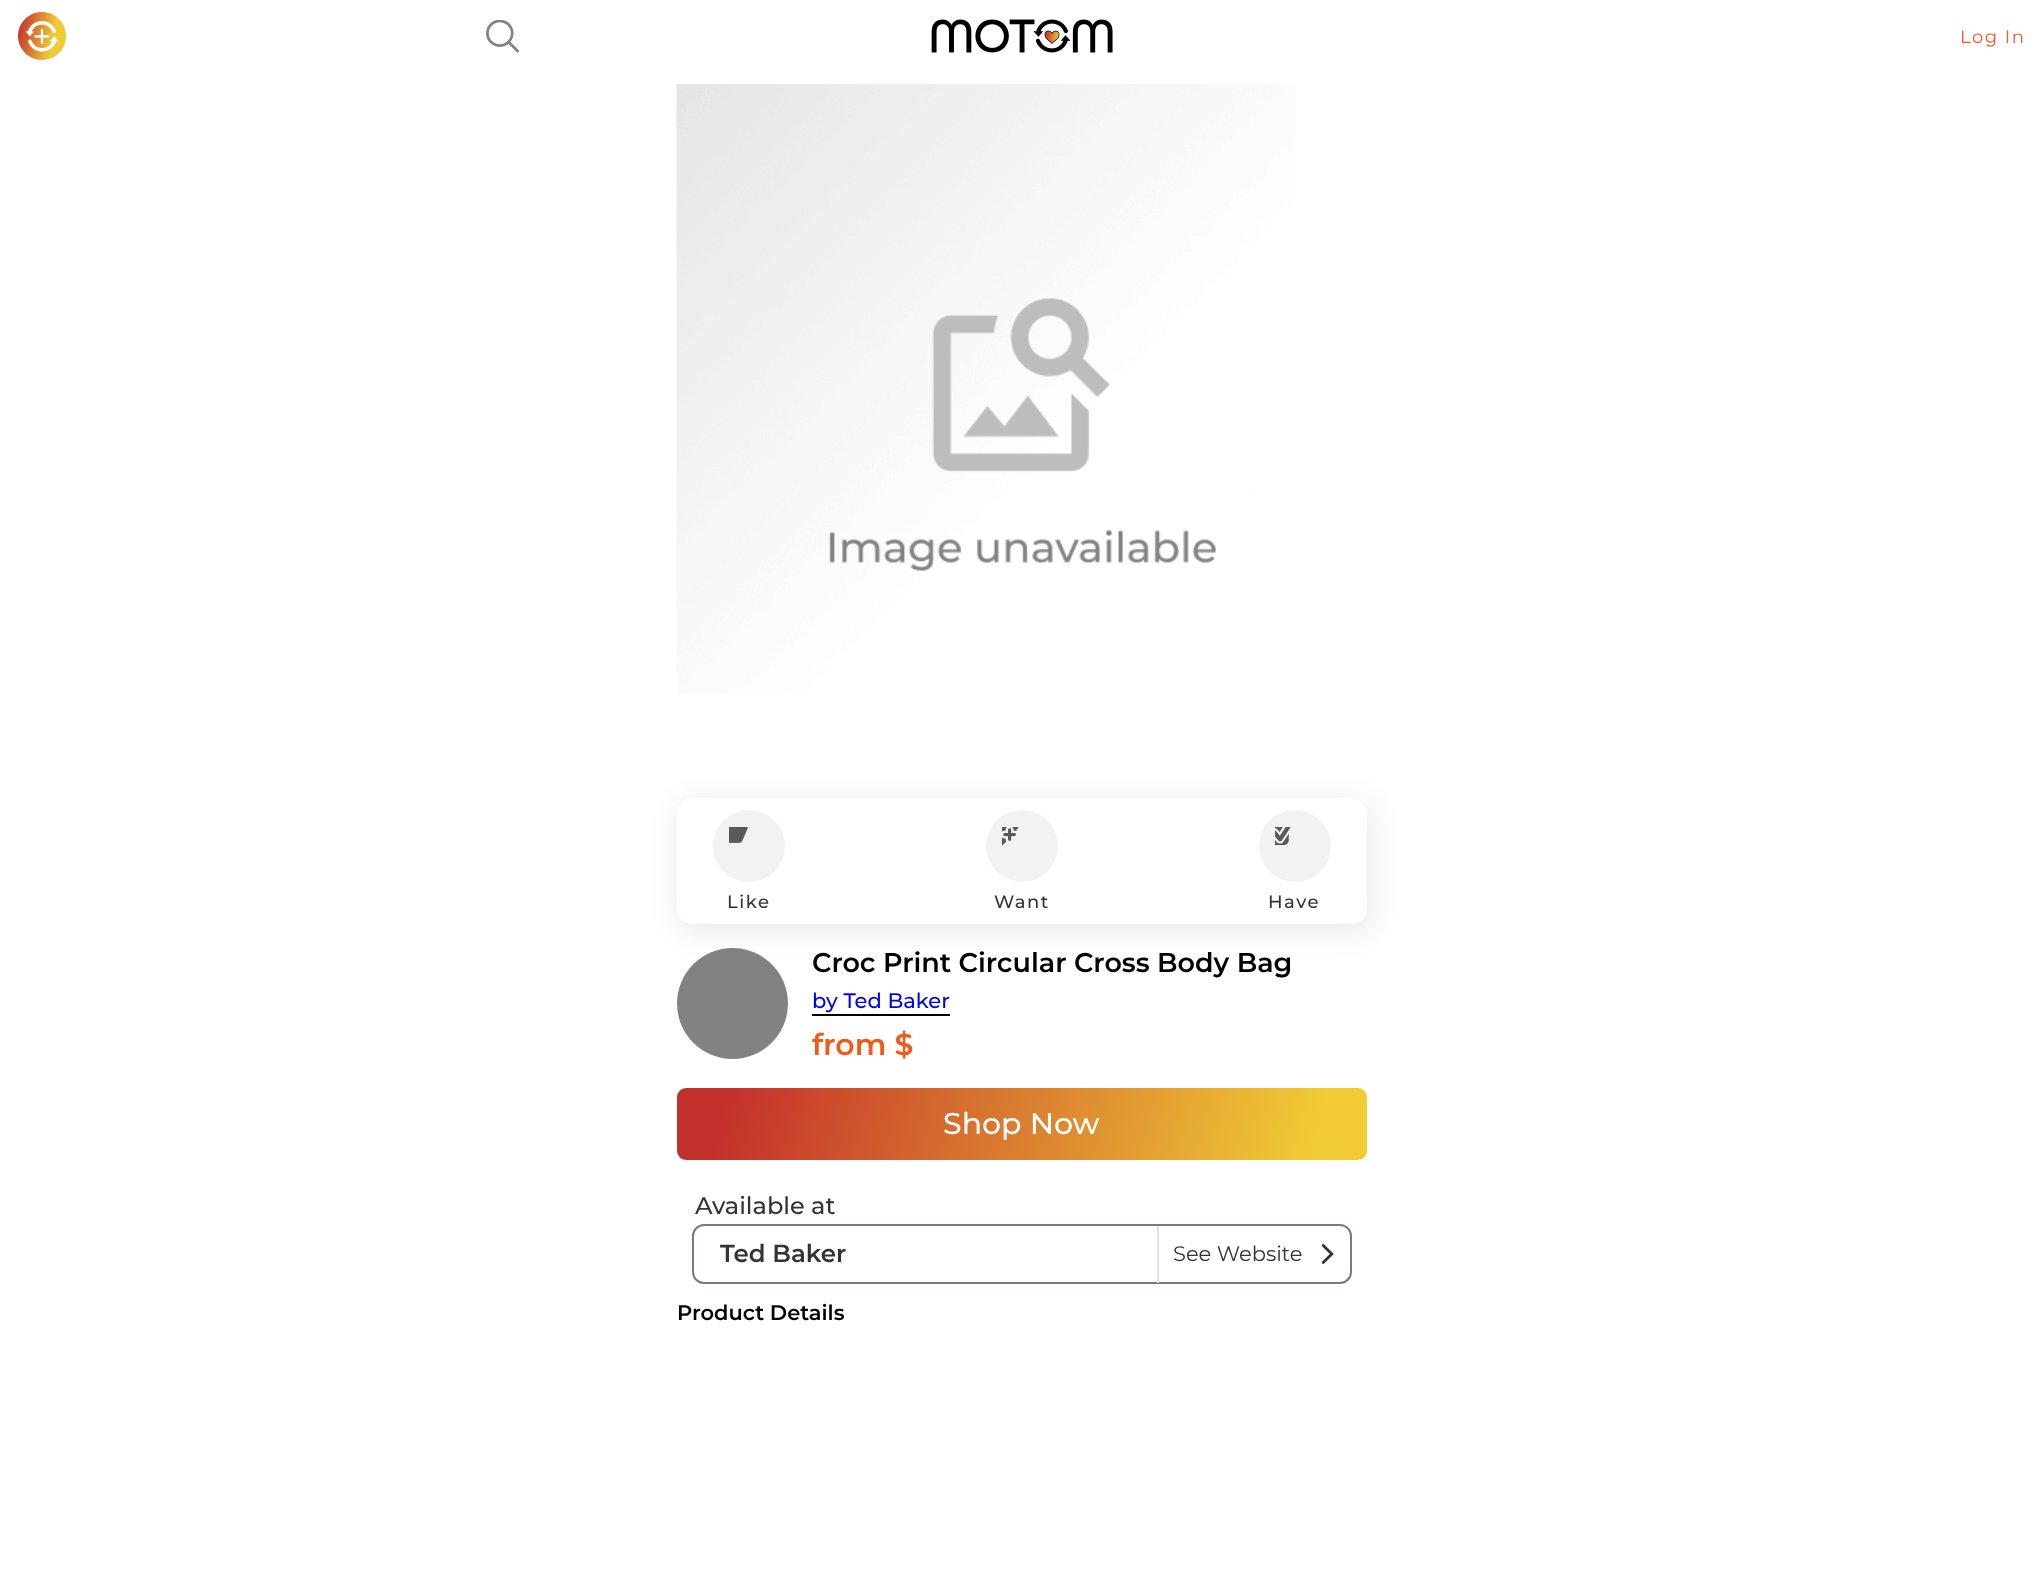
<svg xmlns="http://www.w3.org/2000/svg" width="2042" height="1572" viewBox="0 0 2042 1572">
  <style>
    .t1 { font: 18px Montserrat; letter-spacing: 1.5px; fill: #f15a29; }
    .t2 { font: 500 18px Montserrat; letter-spacing: 1.5px; fill: #333; }
    .t3 { font: 600 27px Montserrat; fill: #000; }
    .t4 { font: 500 21px Montserrat; fill: #00e; }
    .t5 { font: 600 30px Montserrat; fill: #f15a19; }
    .t6 { font: 500 30px Montserrat; fill: #fff; }
    .t7 { font: 500 24px Montserrat; fill: #333; }
    .t8 { font: 600 24.5px Montserrat; fill: #333; }
    .t9 { font: 21px Montserrat; fill: #333; }
    .t10 { font: 600 21px Montserrat; fill: #000; }
  </style>
  <defs>
    <linearGradient id="g1" gradientUnits="userSpaceOnUse" x1="686" y1="1047" x2="1357" y2="1200"><stop offset="0.07" stop-color="#c4302b"/><stop offset="0.92" stop-color="#f0cb35"/></linearGradient>
  </defs>
  <rect width="100%" height="100%" fill="#fff"/>
  <image x="18" y="12" width="48" height="48" href="images/1.png"/>
  <image x="931" y="19" width="182" height="34" href="images/2.png"/>
  <image x="486" y="20" width="33" height="33" href="images/3.png"/>
  <text x="1960" y="43" class="t1">Log In</text>
  <image x="676" y="84" width="620" height="610" href="images/4.png"/>
  <rect x="680" y="804" width="690" height="126" rx="15" fill="#0000001a" filter="blur(15px)"/>
  <rect x="677" y="798" width="690" height="126" rx="15" fill="#fff"/>
  <circle cx="749" cy="846" r="36" fill="#f2f2f2"/>
  <image x="729" y="827" width="19" height="16" href="images/5.png"/>
  <text x="727" y="908" class="t2">Like</text>
  <circle cx="1022" cy="846" r="36" fill="#f2f2f2"/>
  <image x="1002" y="827" width="17" height="19" href="images/6.png"/>
  <text x="994" y="908" class="t2">Want</text>
  <circle cx="1295" cy="846" r="36" fill="#f2f2f2"/>
  <image x="1275" y="827" width="16" height="19" href="images/7.png"/>
  <text x="1268" y="908" class="t2">Have</text>
  <circle cx="732.5" cy="1003.5" r="55.5" fill="#828282"/>
  <text x="812" y="972" class="t3">Croc Print Circular Cross Body Bag</text>
  <rect x="812" y="1014" width="138" height="2" fill="#000"/>
  <text x="812" y="1008" class="t4">by Ted Baker</text>
  <text x="812" y="1055" class="t5">from $</text>
  <rect x="677" y="1088" width="690" height="72" rx="9" fill="url(#g1)"/>
  <text x="943" y="1134" class="t6">Shop Now</text>
  <text x="695" y="1214" class="t7">Available at</text>
  <rect x="693" y="1225" width="658" height="58" rx="11" fill="none" stroke="#857676" stroke-width="2"/>
  <text x="720" y="1262" class="t8">Ted Baker</text>
  <rect x="1157" y="1226" width="2" height="57" fill="#e0e0e0"/>
  <text x="1173" y="1261" class="t9">See Website</text>
  <image x="1321" y="1244" width="13" height="20" href="images/8.png"/>
  <text x="677" y="1320" class="t10">Product Details</text>
</svg>
